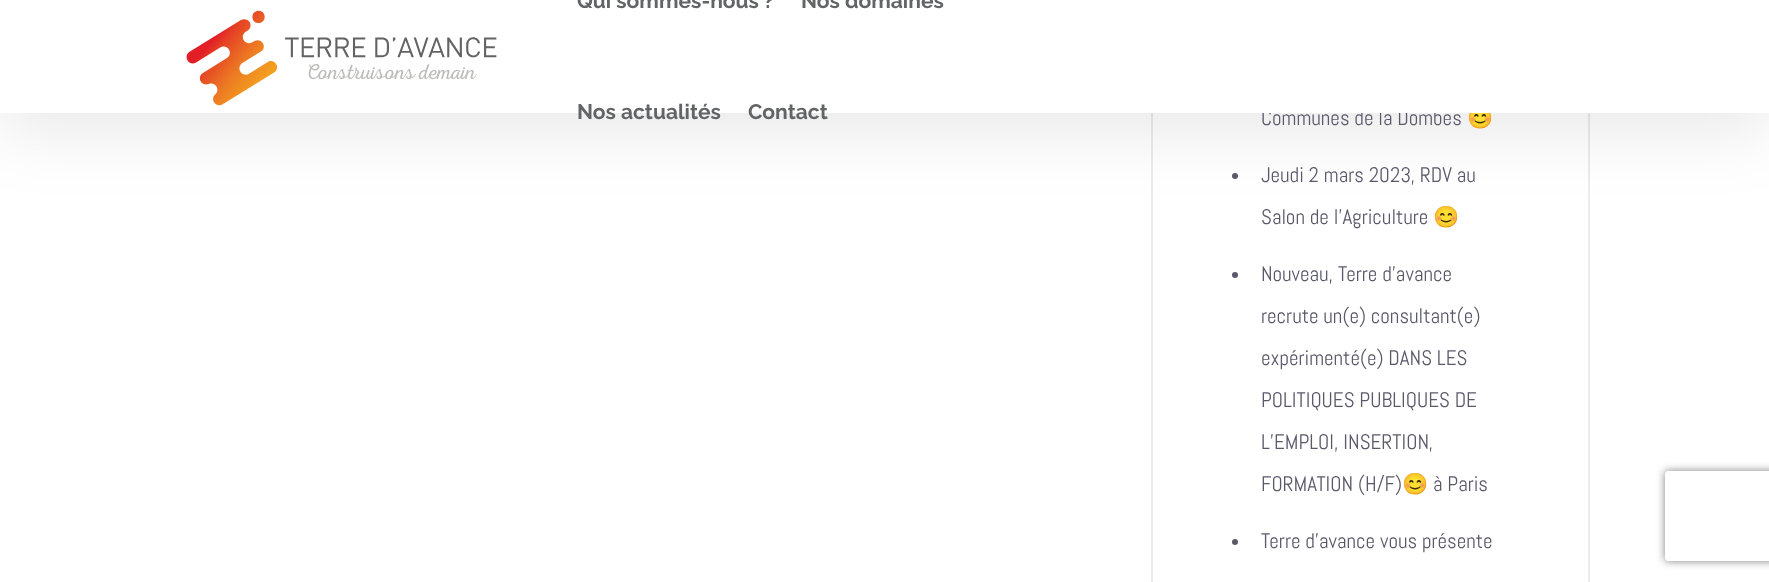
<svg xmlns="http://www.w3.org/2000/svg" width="1769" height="582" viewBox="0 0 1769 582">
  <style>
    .t1 { font: 21px Abel; fill: #5a596a; }
    .t2 { font: 21px Noto Color Emoji; fill: #5a596a; }
    .t3 { font: bold 21px Raleway; fill: #636466; }
  </style>
  <defs>
    <clipPath id="clip1"><path d="M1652 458H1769V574H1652ZM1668 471H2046C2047.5 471 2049 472.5 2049 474V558C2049 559.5 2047.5 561 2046 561H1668C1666.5 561 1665 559.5 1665 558V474C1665 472.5 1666.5 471 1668 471Z" clip-rule="evenodd"/></clipPath>
  </defs>
  <rect width="100%" height="100%" fill="#fff"/>
  <rect x="1152" y="-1" width="437" height="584" fill="none" stroke="#ebebeb" stroke-width="2"/>
  <circle cx="1235" cy="176" r="3" fill="#5a596a"/>
  <rect x="0" y="18" width="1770" height="113" fill="#00000017" filter="blur(34px)"/>
  <text x="1261" y="125" class="t1">Communes de la Dombes</text>
  <text x="1467" y="125" class="t2">😊</text>
  <rect x="0" y="0" width="1769" height="113" fill="#fff"/>
  <image x="186" y="10" width="311" height="96" href="images/1.png"/>
  <text x="577" y="8" class="t3">Qui sommes-nous ?</text>
  <text x="801" y="8" class="t3">Nos domaines</text>
  <text x="577" y="119" class="t3">Nos actualités</text>
  <text x="748" y="119" class="t3">Contact</text>
  <text x="1261" y="182" class="t1">Jeudi 2 mars 2023, RDV au</text>
  <text x="1261" y="224" class="t1">Salon de l’Agriculture</text>
  <text x="1433" y="224" class="t2">😊</text>
  <circle cx="1235" cy="275" r="3" fill="#5a596a"/>
  <text x="1261" y="281" class="t1">Nouveau, Terre d’avance</text>
  <text x="1261" y="323" class="t1">recrute un(e) consultant(e)</text>
  <text x="1261" y="365" class="t1">expérimenté(e) DANS LES</text>
  <text x="1261" y="407" class="t1">POLITIQUES PUBLIQUES DE</text>
  <text x="1261" y="449" class="t1">L’EMPLOI, INSERTION,</text>
  <text x="1261" y="491" class="t1">FORMATION (H/F)</text>
  <text x="1402" y="491" class="t2">😊</text>
  <text x="1433" y="491" class="t1">à Paris</text>
  <circle cx="1235" cy="542" r="3" fill="#5a596a"/>
  <text x="1261" y="548" class="t1">Terre d’avance vous présente</text>
  <g clip-path="url(#clip1)">
    <rect x="1665" y="471" width="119" height="90" rx="3" fill="#808080" filter="blur(4px)"/>
  </g>
</svg>
